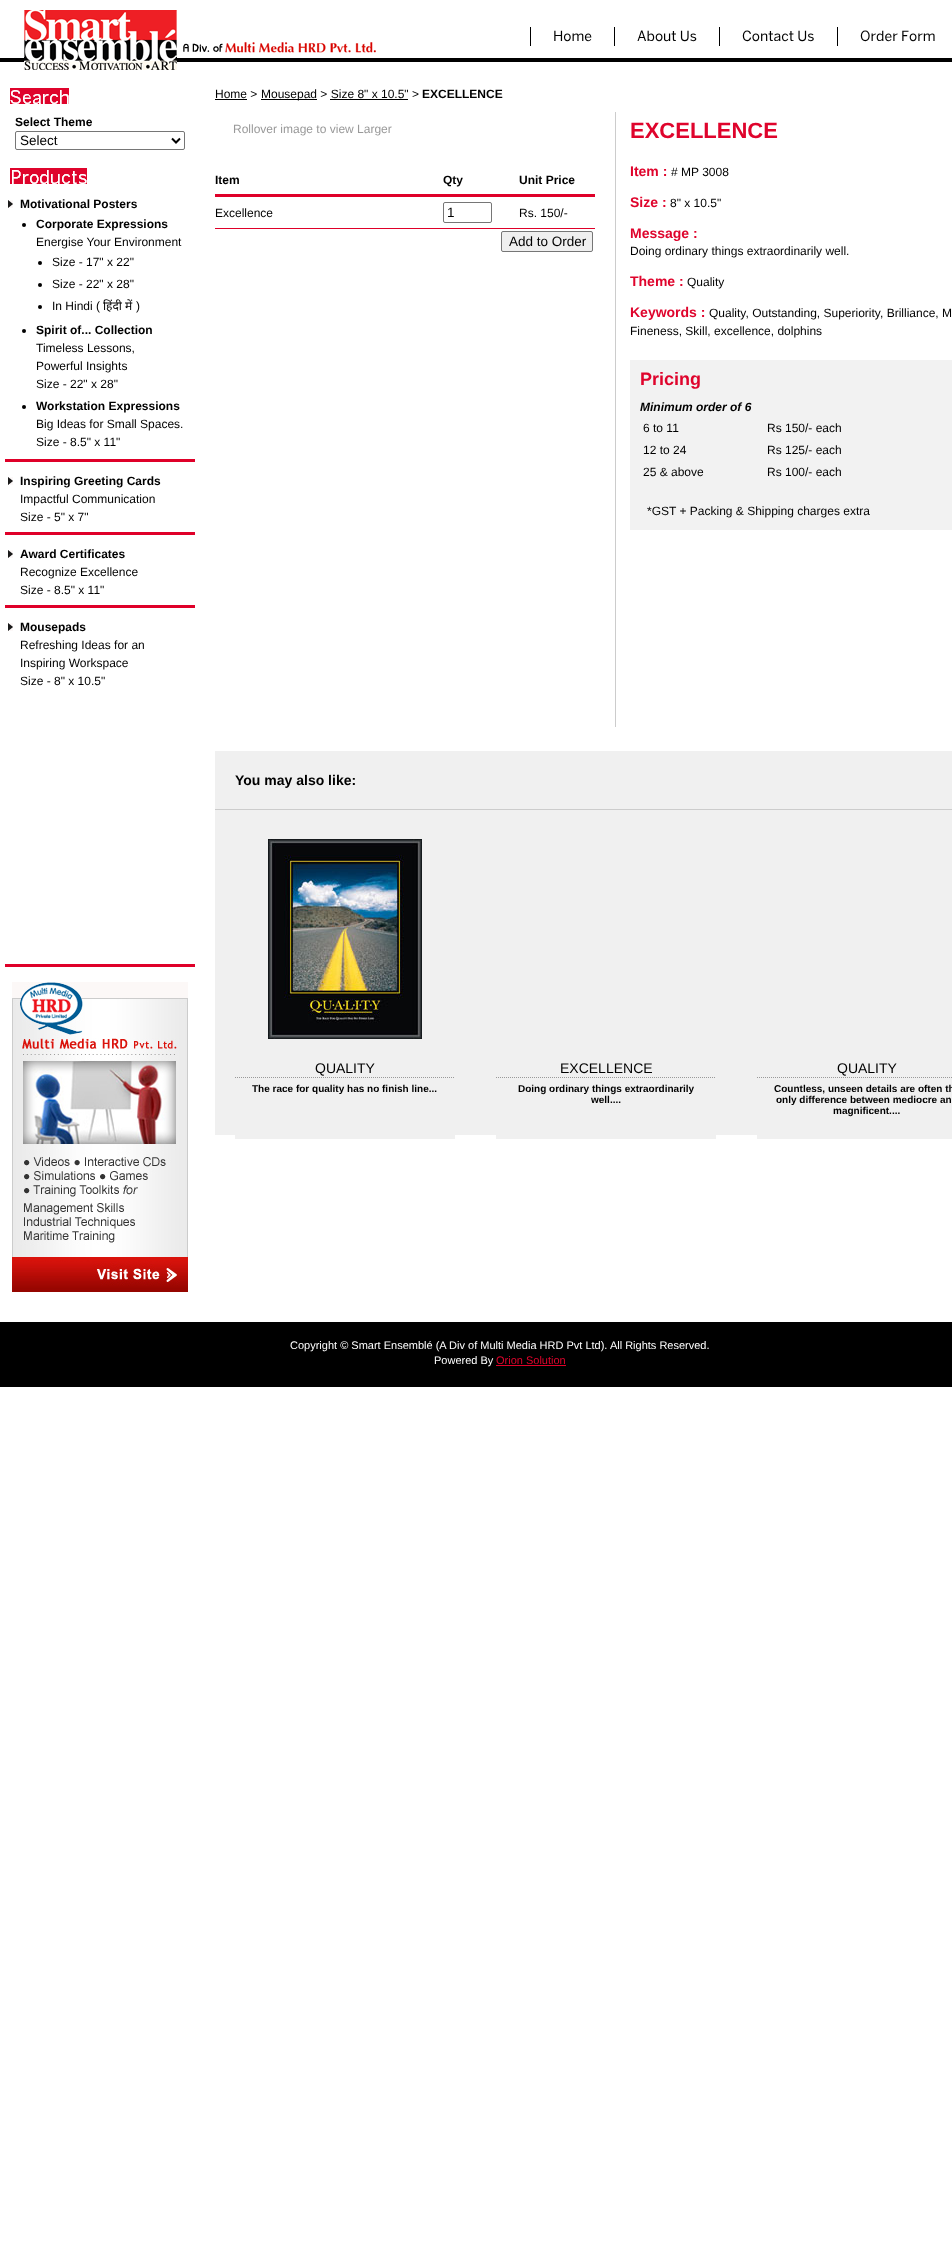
<svg xmlns="http://www.w3.org/2000/svg" width="952" height="2256" viewBox="0 0 952 2256">
  <style>
    .t1 { font: 14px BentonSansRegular; fill: #000; }
    .t2 { font: bold 12px Liberation Sans; fill: #000; }
    .t3 { font: 13.5px Liberation Sans; fill: #000; }
    .t4 { font: 12px Liberation Sans; fill: #000; }
    .t5 { font: 12px Noto Sans; fill: #000; }
    .t6 { font: 12px Liberation Sans; fill: #999; }
    .t7 { font: bold 22px Liberation Sans; fill: #df042c; }
    .t8 { font: bold 14px Liberation Sans; fill: #df042c; }
    .t9 { font: bold 18px Liberation Sans; fill: #df042c; }
    .t10 { font: italic bold 12px Liberation Sans; fill: #000; }
    .t11 { font: bold 14px Liberation Sans; fill: #000; }
    .t12 { font: 14px Liberation Sans; fill: #000; }
    .t13 { font: bold 10px Liberation Sans; fill: #000; }
    .t14 { font: 11px Liberation Sans; fill: #fff; }
    .t15 { font: 11px Liberation Sans; fill: #df042c; }
  </style>
  <rect width="100%" height="100%" fill="#fff"/>
  <rect x="0" y="58" width="952" height="4" fill="#000"/>
  <image x="24" y="10" width="153" height="60" href="images/1.png"/>
  <image x="183" y="42" width="193" height="11" href="images/2.png"/>
  <rect x="530" y="27" width="1" height="19" fill="#000"/>
  <text x="553" y="41" class="t1">Home</text>
  <rect x="614" y="27" width="1" height="19" fill="#000"/>
  <text x="637" y="41" class="t1">About Us</text>
  <rect x="719" y="27" width="1" height="19" fill="#000"/>
  <text x="742" y="41" class="t1">Contact Us</text>
  <rect x="837" y="27" width="1" height="19" fill="#000"/>
  <text x="860" y="41" class="t1">Order Form</text>
  <image x="10" y="88" width="59" height="16" href="images/3.png"/>
  <text x="15" y="126" class="t2">Select Theme</text>
  <rect x="15.5" y="131.5" width="169" height="18" rx="1.5" fill="none" stroke="#767676"/>
  <path d="M172 138.5L176 142.5L180 138.5" fill="none" stroke="#000" stroke-width="2"/>
  <text x="20" y="145" class="t3">Select</text>
  <image x="10" y="168" width="77" height="16" href="images/4.png"/>
  <image x="8" y="200" width="5" height="8" href="images/5.png"/>
  <text x="20" y="208" class="t2">Motivational Posters</text>
  <circle cx="24" cy="225" r="2" fill="#000"/>
  <text x="36" y="228" class="t2">Corporate Expressions</text>
  <text x="36" y="246" class="t4">Energise Your Environment</text>
  <circle cx="40" cy="263" r="2" fill="#000"/>
  <text x="52" y="266" class="t4">Size - 17" x 22"</text>
  <circle cx="40" cy="285" r="2" fill="#000"/>
  <text x="52" y="288" class="t4">Size - 22" x 28"</text>
  <circle cx="40" cy="307" r="2" fill="#000"/>
  <text x="52" y="310" class="t4">In Hindi (</text>
  <text x="103" y="310" class="t5">हिंदी में</text>
  <text x="136" y="310" class="t4">)</text>
  <circle cx="24" cy="331" r="2" fill="#000"/>
  <text x="36" y="334" class="t2">Spirit of... Collection</text>
  <text x="36" y="352" class="t4">Timeless Lessons,</text>
  <text x="36" y="370" class="t4">Powerful Insights</text>
  <text x="36" y="388" class="t4">Size - 22" x 28"</text>
  <circle cx="24" cy="407" r="2" fill="#000"/>
  <text x="36" y="410" class="t2">Workstation Expressions</text>
  <text x="36" y="428" class="t4">Big Ideas for Small Spaces.</text>
  <text x="36" y="446" class="t4">Size - 8.5" x 11"</text>
  <rect x="5" y="459" width="190" height="3" fill="#df0029"/>
  <image x="8" y="477" width="5" height="8" href="images/5.png"/>
  <text x="20" y="485" class="t2">Inspiring Greeting Cards</text>
  <text x="20" y="503" class="t4">Impactful Communication</text>
  <text x="20" y="521" class="t4">Size - 5" x 7"</text>
  <rect x="5" y="532" width="190" height="3" fill="#df0029"/>
  <image x="8" y="550" width="5" height="8" href="images/5.png"/>
  <text x="20" y="558" class="t2">Award Certificates</text>
  <text x="20" y="576" class="t4">Recognize Excellence</text>
  <text x="20" y="594" class="t4">Size - 8.5" x 11"</text>
  <rect x="5" y="605" width="190" height="3" fill="#df0029"/>
  <image x="8" y="623" width="5" height="8" href="images/5.png"/>
  <text x="20" y="631" class="t2">Mousepads</text>
  <text x="20" y="649" class="t4">Refreshing Ideas for an</text>
  <text x="20" y="667" class="t4">Inspiring Workspace</text>
  <text x="20" y="685" class="t4">Size - 8" x 10.5"</text>
  <rect x="5" y="964" width="190" height="3" fill="#df0029"/>
  <image x="12" y="982" width="176" height="310" href="images/6.png"/>
  <text x="215" y="98" class="t4">Home &gt;</text>
  <rect x="215" y="99" width="32" height="1" fill="#000"/>
  <rect x="261" y="99" width="56" height="1" fill="#000"/>
  <text x="261" y="98" class="t4">Mousepad &gt; Size 8" x 10.5" &gt;</text>
  <text x="422" y="98" class="t2">EXCELLENCE</text>
  <rect x="330" y="99" width="78" height="1" fill="#000"/>
  <rect x="615" y="112" width="1" height="615" fill="#ccc"/>
  <text x="233" y="133" class="t6">Rollover image to view Larger</text>
  <rect x="215" y="194" width="380" height="3" fill="#df0029"/>
  <text x="215" y="184" class="t2">Item</text>
  <text x="443" y="184" class="t2">Qty</text>
  <text x="519" y="184" class="t2">Unit Price</text>
  <rect x="215" y="228" width="380" height="1" fill="#df0029"/>
  <text x="215" y="217" class="t4">Excellence</text>
  <rect x="443.5" y="202.5" width="48" height="20" rx="1.5" fill="none" stroke="#767676"/>
  <text x="447" y="217" class="t3">1</text>
  <text x="519" y="217" class="t4">Rs. 150/-</text>
  <rect x="501.5" y="231.5" width="91" height="20" rx="1.5" fill="#efefef" stroke="#767676"/>
  <text x="509" y="246" class="t3">Add to Order</text>
  <text x="630" y="138" class="t7">EXCELLENCE</text>
  <text x="630" y="176" class="t8">Item :</text>
  <text x="671" y="176" class="t4"># MP 3008</text>
  <text x="630" y="207" class="t8">Size :</text>
  <text x="670" y="207" class="t4">8" x 10.5"</text>
  <text x="630" y="238" class="t8">Message :</text>
  <text x="630" y="255" class="t4">Doing ordinary things extraordinarily well.</text>
  <text x="630" y="286" class="t8">Theme :</text>
  <text x="687" y="286" class="t4">Quality</text>
  <text x="630" y="317" class="t8">Keywords :</text>
  <text x="709" y="317" class="t4">Quality, Outstanding, Superiority, Brilliance, M</text>
  <text x="630" y="335" class="t4">Fineness, Skill, excellence, dolphins</text>
  <rect x="630" y="360" width="322" height="170" fill="#f2f2f2"/>
  <text x="640" y="385" class="t9">Pricing</text>
  <text x="640" y="411" class="t10">Minimum order of 6</text>
  <text x="643" y="432" class="t4">6 to 11</text>
  <text x="767" y="432" class="t4">Rs 150/- each</text>
  <text x="643" y="454" class="t4">12 to 24</text>
  <text x="767" y="454" class="t4">Rs 125/- each</text>
  <text x="643" y="476" class="t4">25 &amp; above</text>
  <text x="767" y="476" class="t4">Rs 100/- each</text>
  <text x="647" y="515" class="t4">*GST + Packing &amp; Shipping charges extra</text>
  <rect x="215" y="751" width="737" height="384" fill="#f0f0f0"/>
  <rect x="215" y="809" width="737" height="1" fill="#ccc"/>
  <text x="235" y="785" class="t11">You may also like:</text>
  <image x="268" y="839" width="154" height="200" href="images/7.png"/>
  <rect x="235" y="1135" width="220" height="4" fill="#f0f0f0"/>
  <text x="315" y="1073" class="t12">QUALITY</text>
  <path d="M235 1077.5H455" fill="none" stroke="#999" stroke-dasharray="1 1"/>
  <text x="252" y="1092" class="t13">The race for quality has no finish line...</text>
  <rect x="496" y="1135" width="220" height="4" fill="#f0f0f0"/>
  <text x="560" y="1073" class="t12">EXCELLENCE</text>
  <path d="M496 1077.5H716" fill="none" stroke="#999" stroke-dasharray="1 1"/>
  <text x="518" y="1092" class="t13">Doing ordinary things extraordinarily</text>
  <text x="591" y="1103" class="t13">well....</text>
  <rect x="757" y="1135" width="195" height="4" fill="#f0f0f0"/>
  <text x="837" y="1073" class="t12">QUALITY</text>
  <path d="M757 1077.5H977" fill="none" stroke="#999" stroke-dasharray="1 1"/>
  <text x="774" y="1092" class="t13">Countless, unseen details are often th</text>
  <text x="776" y="1103" class="t13">only difference between mediocre an</text>
  <text x="833" y="1114" class="t13">magnificent....</text>
  <rect x="0" y="1322" width="952" height="65" fill="#000"/>
  <text x="290" y="1349" class="t14">Copyright © Smart Ensemblé (A Div of Multi Media HRD Pvt Ltd). All Rights Reserved.</text>
  <text x="434" y="1364" class="t14">Powered By</text>
  <text x="496" y="1364" class="t15">Orion Solution</text>
  <rect x="496" y="1365" width="70" height="1" fill="#df0029"/>
</svg>
